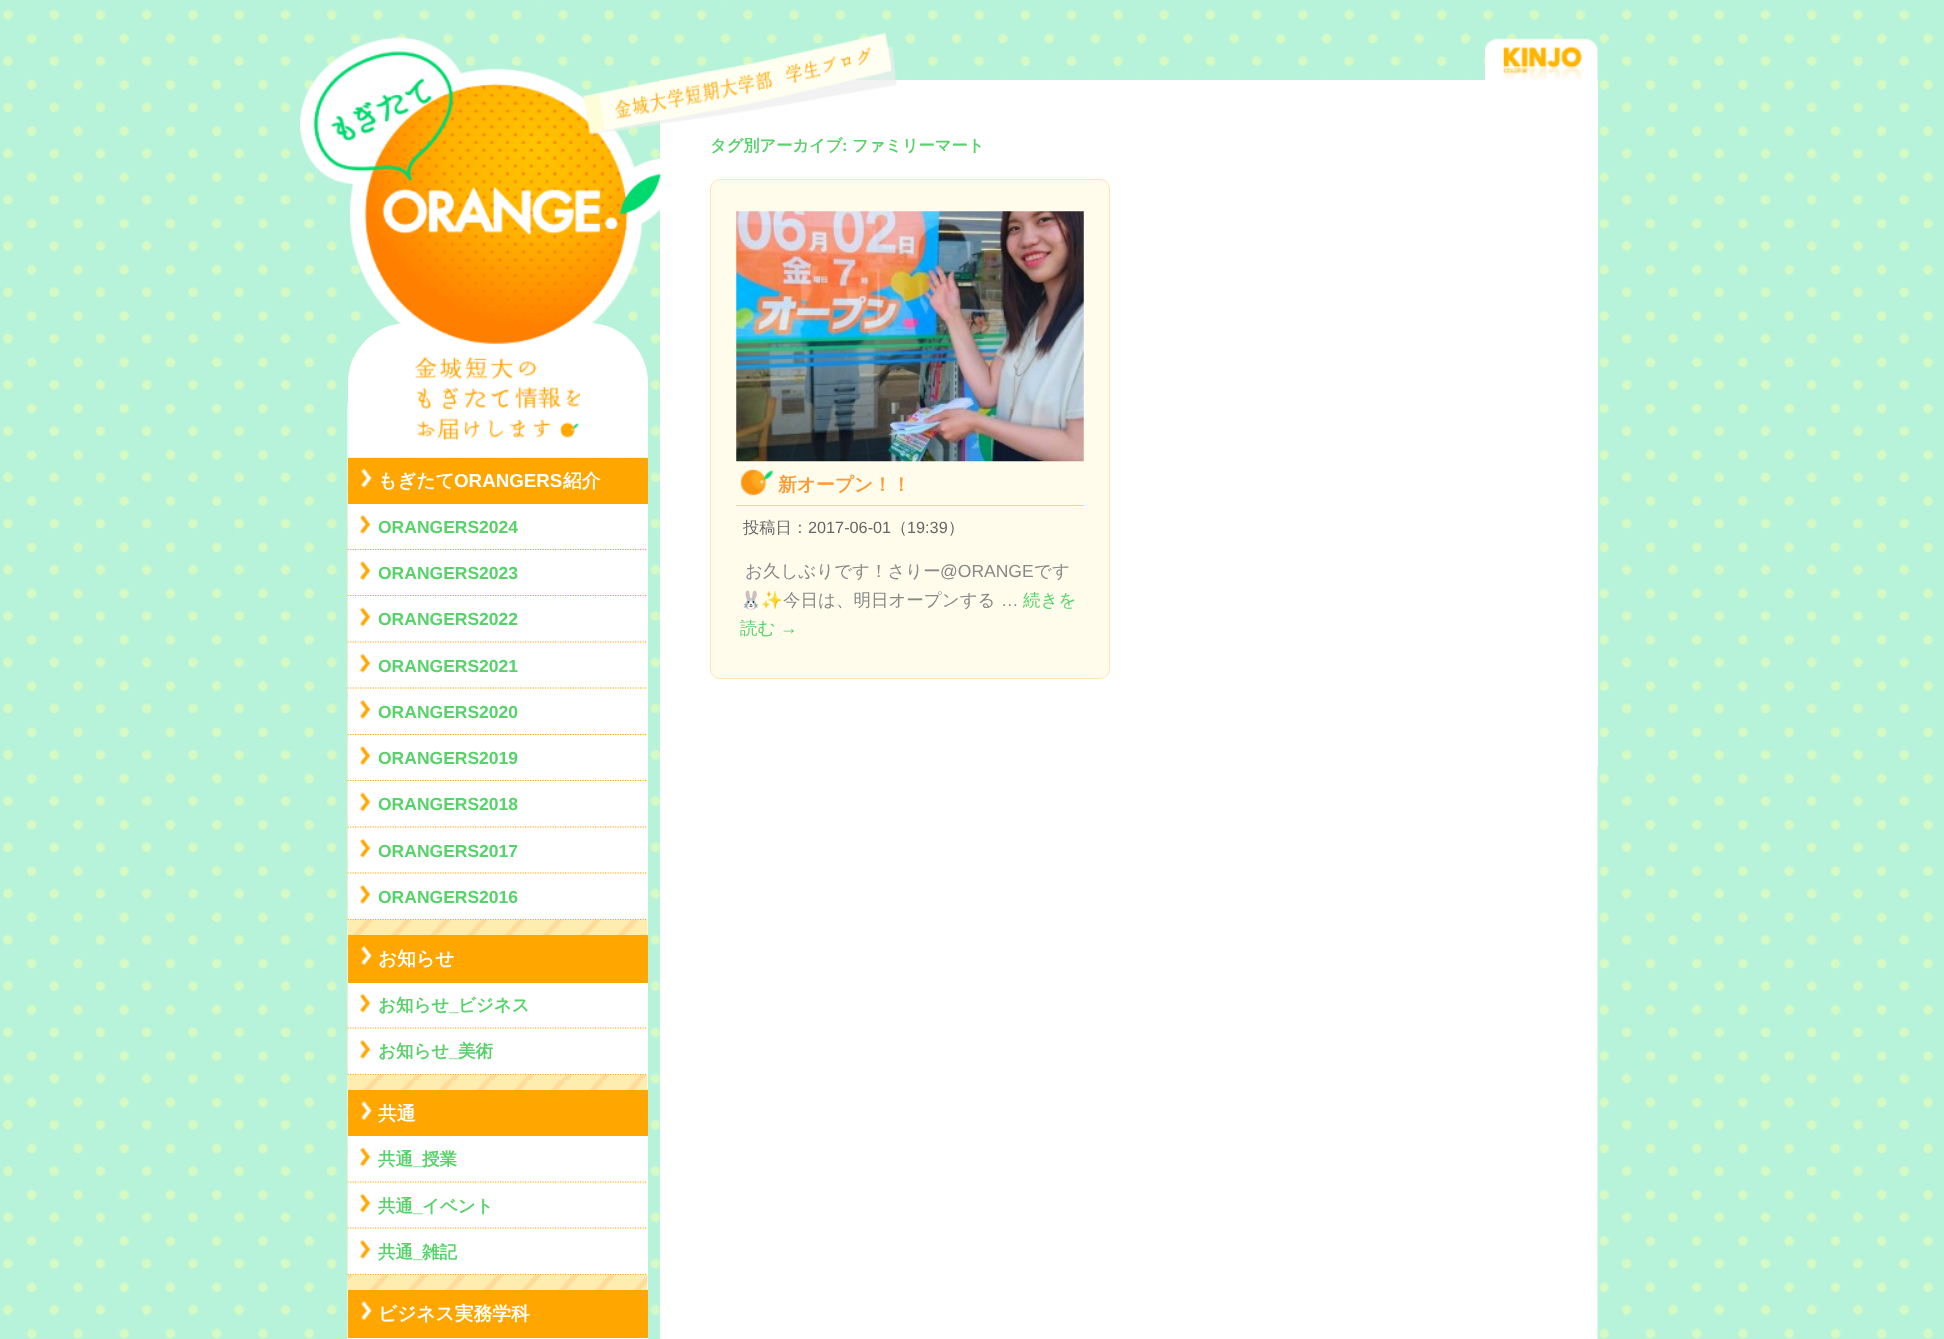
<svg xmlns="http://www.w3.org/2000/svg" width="1944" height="1339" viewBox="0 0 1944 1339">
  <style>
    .t1 { font: bold 16.25px WenQuanYi Zen Hei; fill: #58d26a; }
    .t2 { font: bold 16.25px Liberation Sans; fill: #58d26a; }
    .t3 { font: bold 18.75px WenQuanYi Zen Hei; fill: #ff9a33; }
    .t4 { font: 500 16.25px WenQuanYi Zen Hei; fill: #666; }
    .t5 { font: 16.25px Liberation Sans; fill: #666; }
    .t6 { font: 500 17.5px WenQuanYi Zen Hei; fill: #888; }
    .t7 { font: 17.5px Liberation Sans; fill: #888; }
    .t8 { font: 17.5px Noto Color Emoji; fill: #888; }
    .t9 { font: 500 17.5px WenQuanYi Zen Hei; fill: #58d26a; }
    .t10 { font: 17.5px Liberation Sans; fill: #58d26a; }
    .t11 { font: bold 18.75px WenQuanYi Zen Hei; fill: #fff; }
    .t12 { font: bold 18.75px Liberation Sans; fill: #fff; }
    .t13 { font: bold 17.5px Liberation Sans; fill: #58d26a; }
    .t14 { font: bold 17.5px WenQuanYi Zen Hei; fill: #58d26a; }
  </style>
  <rect width="100%" height="100%" fill="#fff"/>
  <image x="0" y="0" width="1944" height="1339" href="images/1.png"/>
  <image x="347" y="402" width="1251" height="937" href="images/2.png"/>
  <rect x="348" y="323" width="300" height="205" rx="60" fill="#fff"/>
  <image x="415" y="357" width="165" height="83" href="images/5.png"/>
  <rect x="660" y="80" width="938" height="686" fill="#fff"/>
  <image x="300" y="37" width="376" height="323" href="images/3.png"/>
  <image x="583" y="32" width="314" height="103" href="images/4.png"/>
  <image x="1485" y="38" width="113" height="42" href="images/6.png"/>
  <text x="710" y="151" class="t1">タグ別アーカイブ</text>
  <text x="842" y="151" class="t2">:</text>
  <text x="852" y="151" class="t1">ファミリーマート</text>
  <rect x="710.5" y="179.5" width="399" height="499" rx="9.5" fill="#fffcec" stroke="#ffe4b2"/>
  <image x="736" y="211" width="348" height="251" href="images/7.png"/>
  <image x="740" y="468" width="34" height="28" href="images/8.png"/>
  <rect x="736" y="505" width="348" height="1" fill="#ffd27f"/>
  <text x="778" y="491" class="t3">新オープン！！</text>
  <text x="743" y="533" class="t4">投稿日：</text>
  <text x="808" y="533" class="t5">2017-06-01</text>
  <text x="891" y="533" class="t4">（</text>
  <text x="907" y="533" class="t5">19:39</text>
  <text x="948" y="533" class="t4">）</text>
  <text x="745" y="577" class="t6">お久しぶりです！さりー</text>
  <text x="940" y="577" class="t7">@ORANGE</text>
  <text x="1034" y="577" class="t6">です</text>
  <text x="740" y="606" class="t8">🐰✨</text>
  <text x="783" y="606" class="t6">今日は、明日オープンする</text>
  <text x="1001" y="606" class="t7">…</text>
  <text x="1023" y="606" class="t9">続きを</text>
  <text x="740" y="634" class="t9">読む</text>
  <text x="780" y="634" class="t10">→</text>
  <rect x="647" y="920" width="1" height="370" fill="#fff"/>
  <image x="347" y="457" width="301" height="882" href="images/9.png"/>
  <rect x="348" y="458" width="300" height="46" fill="#ffa600"/>
  <image x="361" y="468" width="11" height="20" href="images/10.png"/>
  <text x="378" y="487" class="t11">もぎたて</text>
  <text x="454" y="487" class="t12">ORANGERS</text>
  <text x="563" y="487" class="t11">紹介</text>
  <rect x="348" y="504" width="300" height="46" fill="#fff"/>
  <image x="360" y="515" width="11" height="19" href="images/11.png"/>
  <path d="M347.5 549.5H647.5" fill="none" stroke="#ffa600" stroke-width="1.2" stroke-dasharray="1.25 1.25"/>
  <text x="378" y="533" class="t13">ORANGERS2024</text>
  <rect x="348" y="550" width="300" height="46" fill="#fff"/>
  <image x="360" y="561" width="11" height="19" href="images/12.png"/>
  <path d="M347.5 595.5H647.5" fill="none" stroke="#ffa600" stroke-width="1.2" stroke-dasharray="1.25 1.25"/>
  <text x="378" y="579" class="t13">ORANGERS2023</text>
  <rect x="348" y="596" width="300" height="139" fill="#fff"/>
  <image x="360" y="607" width="11" height="20" href="images/13.png"/>
  <path d="M347.5 642H647.5" fill="none" stroke="#ffa600" stroke-width="1.2" stroke-dasharray="1.25 1.25"/>
  <text x="378" y="625" class="t13">ORANGERS2022</text>
  <image x="360" y="653" width="11" height="20" href="images/14.png"/>
  <path d="M347.5 688H647.5" fill="none" stroke="#ffa600" stroke-width="1.2" stroke-dasharray="1.25 1.25"/>
  <text x="378" y="672" class="t13">ORANGERS2021</text>
  <image x="360" y="700" width="11" height="19" href="images/11.png"/>
  <path d="M347.5 734.5H647.5" fill="none" stroke="#ffa600" stroke-width="1.2" stroke-dasharray="1.25 1.25"/>
  <text x="378" y="718" class="t13">ORANGERS2020</text>
  <rect x="348" y="735" width="300" height="46" fill="#fff"/>
  <image x="360" y="746" width="11" height="19" href="images/12.png"/>
  <path d="M347.5 780.5H647.5" fill="none" stroke="#ffa600" stroke-width="1.2" stroke-dasharray="1.25 1.25"/>
  <text x="378" y="764" class="t13">ORANGERS2019</text>
  <rect x="348" y="781" width="300" height="139" fill="#fff"/>
  <image x="360" y="792" width="11" height="20" href="images/13.png"/>
  <path d="M347.5 827H647.5" fill="none" stroke="#ffa600" stroke-width="1.2" stroke-dasharray="1.25 1.25"/>
  <text x="378" y="810" class="t13">ORANGERS2018</text>
  <image x="360" y="838" width="11" height="20" href="images/14.png"/>
  <path d="M347.5 873H647.5" fill="none" stroke="#ffa600" stroke-width="1.2" stroke-dasharray="1.25 1.25"/>
  <text x="378" y="857" class="t13">ORANGERS2017</text>
  <image x="360" y="885" width="11" height="19" href="images/11.png"/>
  <path d="M347.5 919.5H647.5" fill="none" stroke="#ffa600" stroke-width="1.2" stroke-dasharray="1.25 1.25"/>
  <text x="378" y="903" class="t13">ORANGERS2016</text>
  <rect x="348" y="935" width="300" height="48" fill="#ffa600"/>
  <image x="361" y="946" width="11" height="19" href="images/15.png"/>
  <text x="378" y="965" class="t11">お知らせ</text>
  <rect x="348" y="983" width="300" height="92" fill="#fff"/>
  <image x="360" y="993" width="11" height="20" href="images/14.png"/>
  <path d="M347.5 1028H647.5" fill="none" stroke="#ffa600" stroke-width="1.2" stroke-dasharray="1.25 1.25"/>
  <text x="378" y="1011" class="t14">お知らせ</text>
  <text x="449" y="1011" class="t13">_</text>
  <text x="458" y="1011" class="t14">ビジネス</text>
  <image x="360" y="1040" width="11" height="19" href="images/11.png"/>
  <path d="M347.5 1074.5H647.5" fill="none" stroke="#ffa600" stroke-width="1.2" stroke-dasharray="1.25 1.25"/>
  <text x="378" y="1057" class="t14">お知らせ</text>
  <text x="449" y="1057" class="t13">_</text>
  <text x="458" y="1057" class="t14">美術</text>
  <rect x="348" y="1090" width="300" height="46" fill="#ffa600"/>
  <image x="361" y="1101" width="11" height="19" href="images/15.png"/>
  <text x="378" y="1120" class="t11">共通</text>
  <rect x="348" y="1136" width="300" height="139" fill="#fff"/>
  <image x="360" y="1147" width="11" height="20" href="images/13.png"/>
  <path d="M347.5 1182H647.5" fill="none" stroke="#ffa600" stroke-width="1.2" stroke-dasharray="1.25 1.25"/>
  <text x="378" y="1165" class="t14">共通</text>
  <text x="413" y="1165" class="t13">_</text>
  <text x="422" y="1165" class="t14">授業</text>
  <image x="360" y="1193" width="11" height="20" href="images/14.png"/>
  <path d="M347.5 1228H647.5" fill="none" stroke="#ffa600" stroke-width="1.2" stroke-dasharray="1.25 1.25"/>
  <text x="378" y="1212" class="t14">共通</text>
  <text x="413" y="1212" class="t13">_</text>
  <text x="422" y="1212" class="t14">イベント</text>
  <image x="360" y="1240" width="11" height="19" href="images/11.png"/>
  <path d="M347.5 1274.5H647.5" fill="none" stroke="#ffa600" stroke-width="1.2" stroke-dasharray="1.25 1.25"/>
  <text x="378" y="1258" class="t14">共通</text>
  <text x="413" y="1258" class="t13">_</text>
  <text x="422" y="1258" class="t14">雑記</text>
  <rect x="348" y="1290" width="300" height="48" fill="#ffa600"/>
  <image x="361" y="1301" width="11" height="19" href="images/15.png"/>
  <text x="378" y="1320" class="t11">ビジネス実務学科</text>
  <rect x="348" y="1338" width="300" height="1" fill="#fff"/>
</svg>
